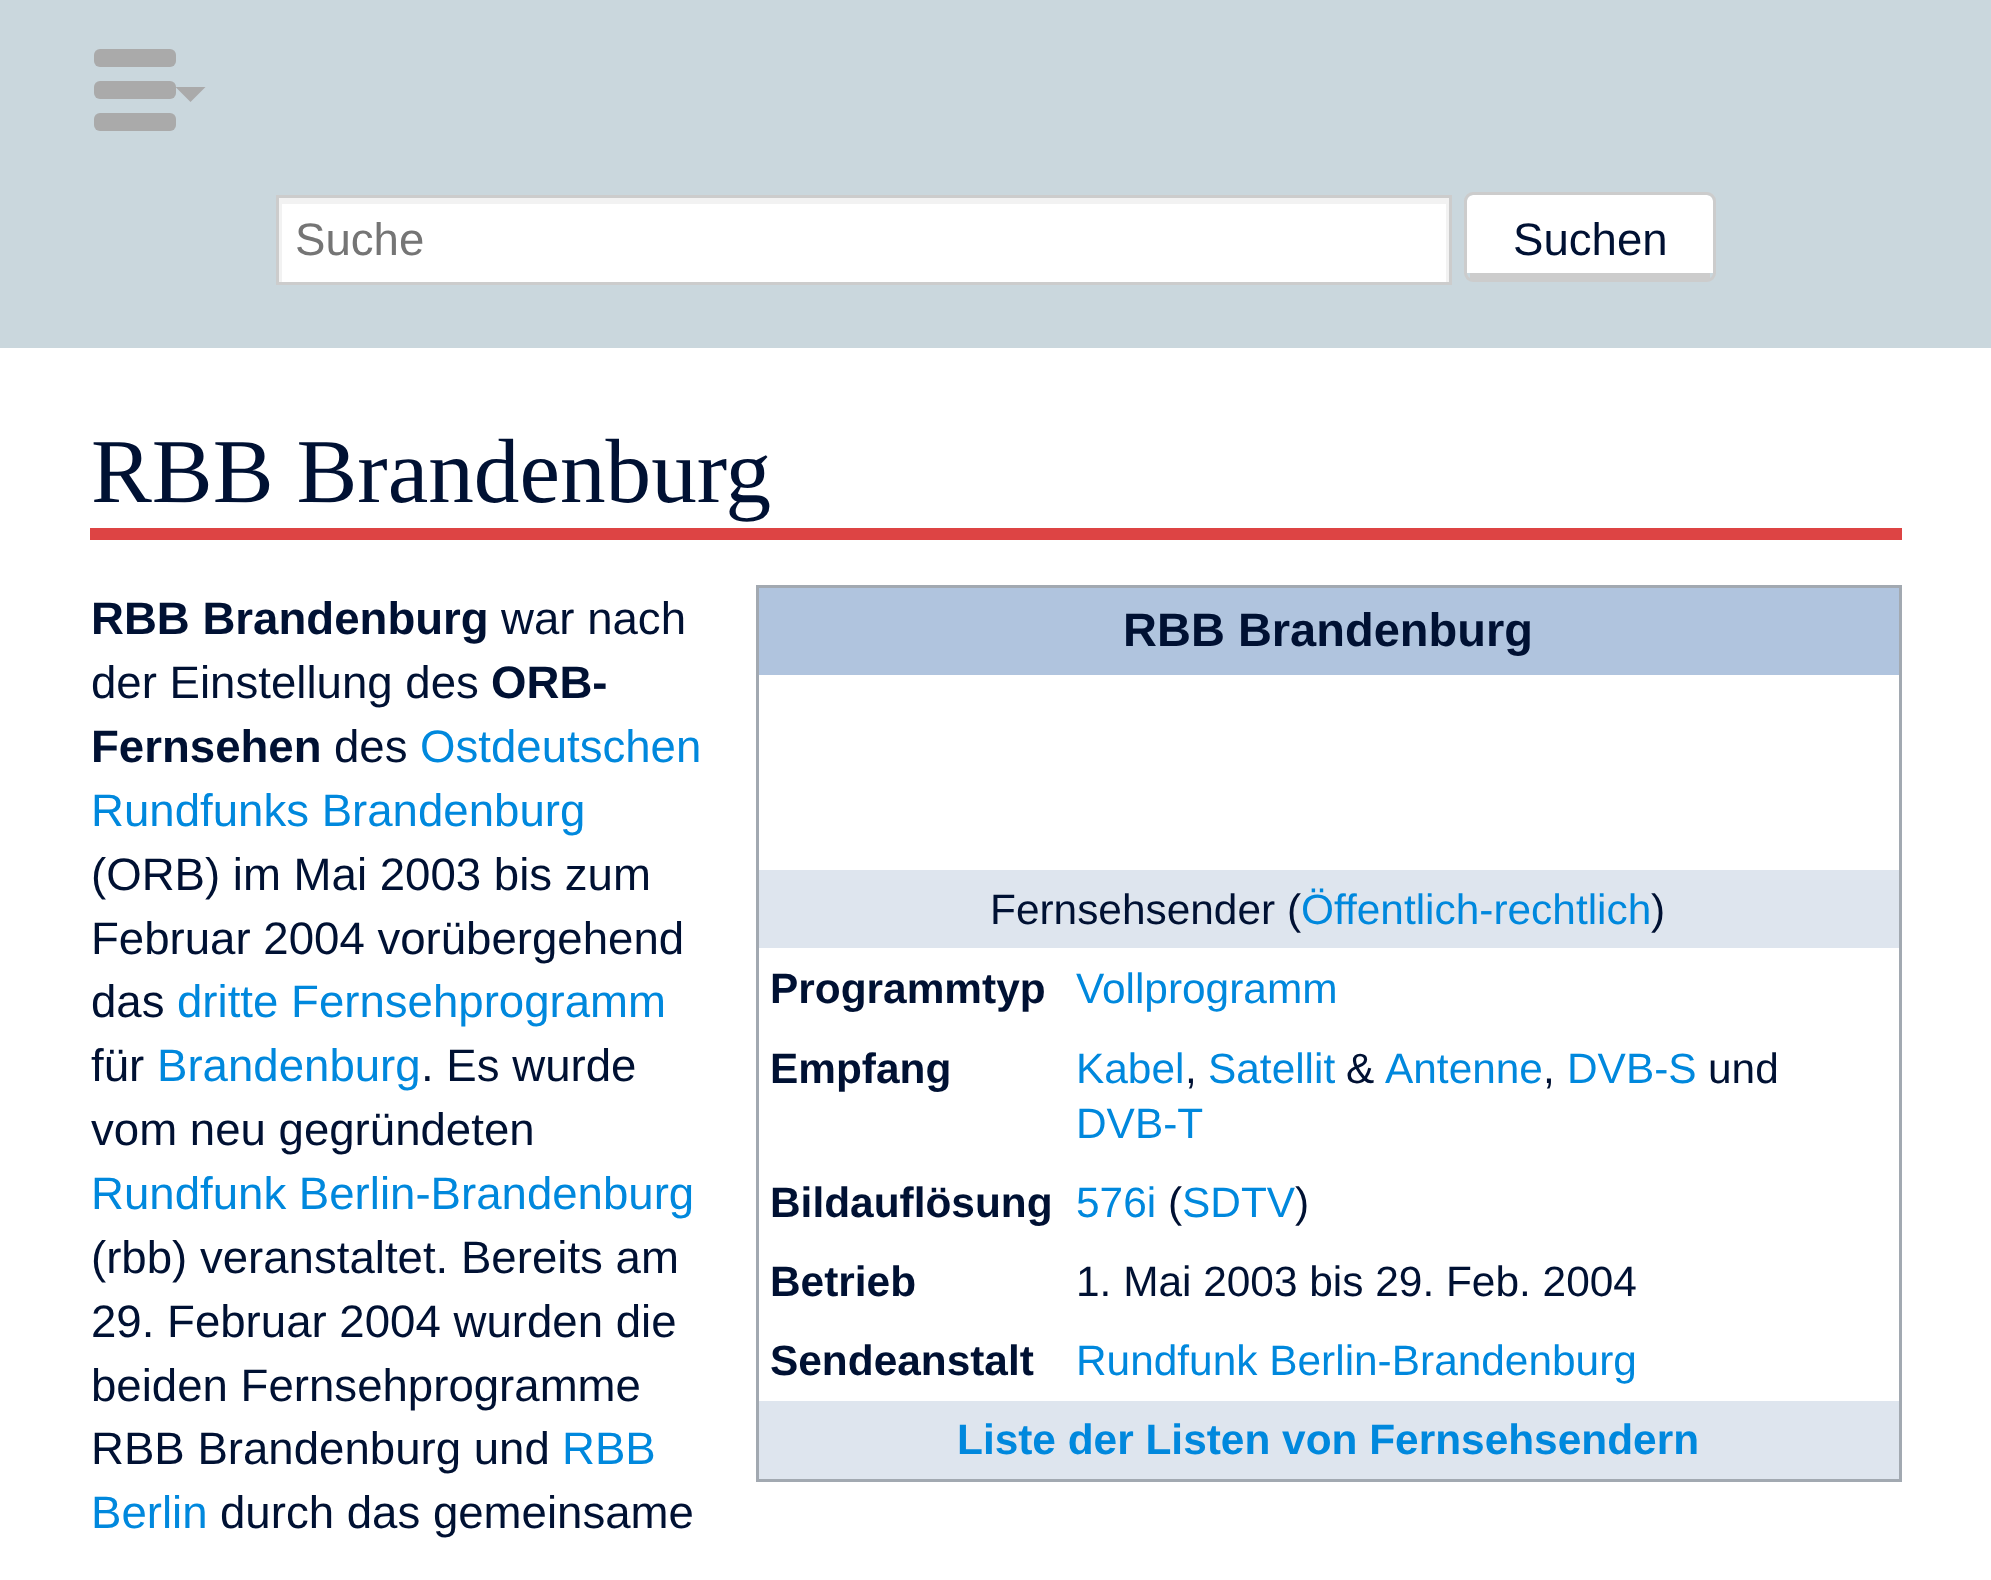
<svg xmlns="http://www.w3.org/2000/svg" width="1991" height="1580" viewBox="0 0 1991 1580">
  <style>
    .t1 { font: 45.6px Liberation Sans; fill: #757575; }
    .t2 { font: 45.6px Liberation Sans; fill: #013; }
    .t3 { font: 91.25px Liberation Serif; fill: #013; }
    .t4 { font: bold 45.6px Liberation Sans; fill: #013; }
    .t5 { font: 45.6px Liberation Sans; fill: #08d; }
    .t6 { font: bold 47px Liberation Sans; fill: #013; }
    .t7 { font: 42.4px Liberation Sans; fill: #013; }
    .t8 { font: 42.4px Liberation Sans; fill: #08d; }
    .t9 { font: bold 42.4px Liberation Sans; fill: #013; }
    .t10 { font: bold 42.4px Liberation Sans; fill: #08d; }
  </style>
  <defs>
    <clipPath id="clip1"><rect x="279" y="198" width="1170" height="84"/></clipPath>
  </defs>
  <rect width="100%" height="100%" fill="#cad7dd"/>
  <rect x="282" y="204" width="1164" height="78" fill="#fff"/>
  <g clip-path="url(#clip1)">
    <path d="M-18-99H1746V579H-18ZM282 204H1446V282H282Z" fill="#f2f2f2" fill-rule="evenodd"/>
  </g>
  <rect x="277.5" y="196.5" width="1173" height="87" fill="none" stroke="#ccc" stroke-width="3"/>
  <text x="295" y="255" class="t1">Suche</text>
  <path d="M1473 195H1707C1710 195 1713 198 1713 201V273H1707H1467V201C1467 198 1470 195 1473 195Z" fill="#fff"/>
  <rect x="1465.5" y="193.5" width="249" height="87" rx="7.5" fill="none" stroke="#ccc" stroke-width="3"/>
  <rect x="1470" y="273" width="240" height="6" fill="#ccc"/>
  <text x="1513" y="255" class="t2">Suchen</text>
  <rect x="0" y="348" width="1991" height="1232" fill="#fff"/>
  <rect x="94" y="113" width="82" height="18" rx="6" fill="#aaa"/>
  <rect x="94" y="81" width="82" height="18" rx="6" fill="#aaa"/>
  <rect x="94" y="49" width="82" height="18" rx="6" fill="#aaa"/>
  <path d="M205.5 87L190.5 102L175.5 87Z" fill="#aaa"/>
  <rect x="90" y="528" width="1812" height="12" fill="#d44"/>
  <text x="91" y="502" class="t3">RBB Brandenburg</text>
  <text x="91" y="634" class="t4">RBB Brandenburg</text>
  <text x="501" y="634" class="t2">war nach</text>
  <text x="91" y="698" class="t2">der Einstellung des</text>
  <text x="491" y="698" class="t4">ORB-</text>
  <text x="91" y="762" class="t4">Fernsehen</text>
  <text x="334" y="762" class="t2">des</text>
  <text x="420" y="762" class="t5">Ostdeutschen</text>
  <text x="91" y="826" class="t5">Rundfunks Brandenburg</text>
  <text x="91" y="890" class="t2">(ORB) im Mai 2003 bis zum</text>
  <text x="91" y="954" class="t2">Februar 2004 vorübergehend</text>
  <text x="91" y="1017" class="t2">das</text>
  <text x="177" y="1017" class="t5">dritte Fernsehprogramm</text>
  <text x="91" y="1081" class="t2">für</text>
  <text x="157" y="1081" class="t5">Brandenburg</text>
  <text x="421" y="1081" class="t2">. Es wurde</text>
  <text x="91" y="1145" class="t2">vom neu gegründeten</text>
  <text x="91" y="1209" class="t5">Rundfunk Berlin-Brandenburg</text>
  <text x="91" y="1273" class="t2">(rbb) veranstaltet. Bereits am</text>
  <text x="91" y="1337" class="t2">29. Februar 2004 wurden die</text>
  <text x="91" y="1401" class="t2">beiden Fernsehprogramme</text>
  <text x="91" y="1464" class="t2">RBB Brandenburg und</text>
  <text x="562" y="1464" class="t5">RBB</text>
  <text x="91" y="1528" class="t5">Berlin</text>
  <text x="220" y="1528" class="t2">durch das gemeinsame</text>
  <rect x="756" y="585" width="1146" height="3" fill="#a2a9b1"/>
  <rect x="1899" y="585" width="3" height="897" fill="#a2a9b1"/>
  <rect x="756" y="1479" width="1146" height="3" fill="#a2a9b1"/>
  <rect x="756" y="585" width="3" height="897" fill="#a2a9b1"/>
  <rect x="759" y="588" width="1140" height="87" fill="#b0c4de"/>
  <text x="1123" y="646" class="t6">RBB Brandenburg</text>
  <rect x="759" y="870" width="1140" height="78" fill="#dee5ee"/>
  <text x="990" y="924" class="t7">Fernsehsender (</text>
  <text x="1301" y="924" class="t8">Öffentlich-rechtlich</text>
  <text x="1651" y="924" class="t7">)</text>
  <text x="770" y="1003" class="t9">Programmtyp</text>
  <text x="1076" y="1003" class="t8">Vollprogramm</text>
  <text x="770" y="1083" class="t9">Empfang</text>
  <text x="1076" y="1083" class="t8">Kabel</text>
  <text x="1185" y="1083" class="t7">,</text>
  <text x="1208" y="1083" class="t8">Satellit</text>
  <text x="1346" y="1083" class="t7">&amp;</text>
  <text x="1385" y="1083" class="t8">Antenne</text>
  <text x="1543" y="1083" class="t7">,</text>
  <text x="1567" y="1083" class="t8">DVB-S</text>
  <text x="1708" y="1083" class="t7">und</text>
  <text x="1076" y="1138" class="t8">DVB-T</text>
  <text x="770" y="1217" class="t9">Bildauflösung</text>
  <text x="1076" y="1217" class="t8">576i</text>
  <text x="1168" y="1217" class="t7">(</text>
  <text x="1182" y="1217" class="t8">SDTV</text>
  <text x="1295" y="1217" class="t7">)</text>
  <text x="770" y="1296" class="t9">Betrieb</text>
  <text x="1076" y="1296" class="t7">1. Mai 2003 bis 29. Feb. 2004</text>
  <text x="770" y="1375" class="t9">Sendeanstalt</text>
  <text x="1076" y="1375" class="t8">Rundfunk Berlin-Brandenburg</text>
  <rect x="759" y="1401" width="1140" height="78" fill="#dee5ee"/>
  <text x="957" y="1454" class="t10">Liste der Listen von Fernsehsendern</text>
</svg>
